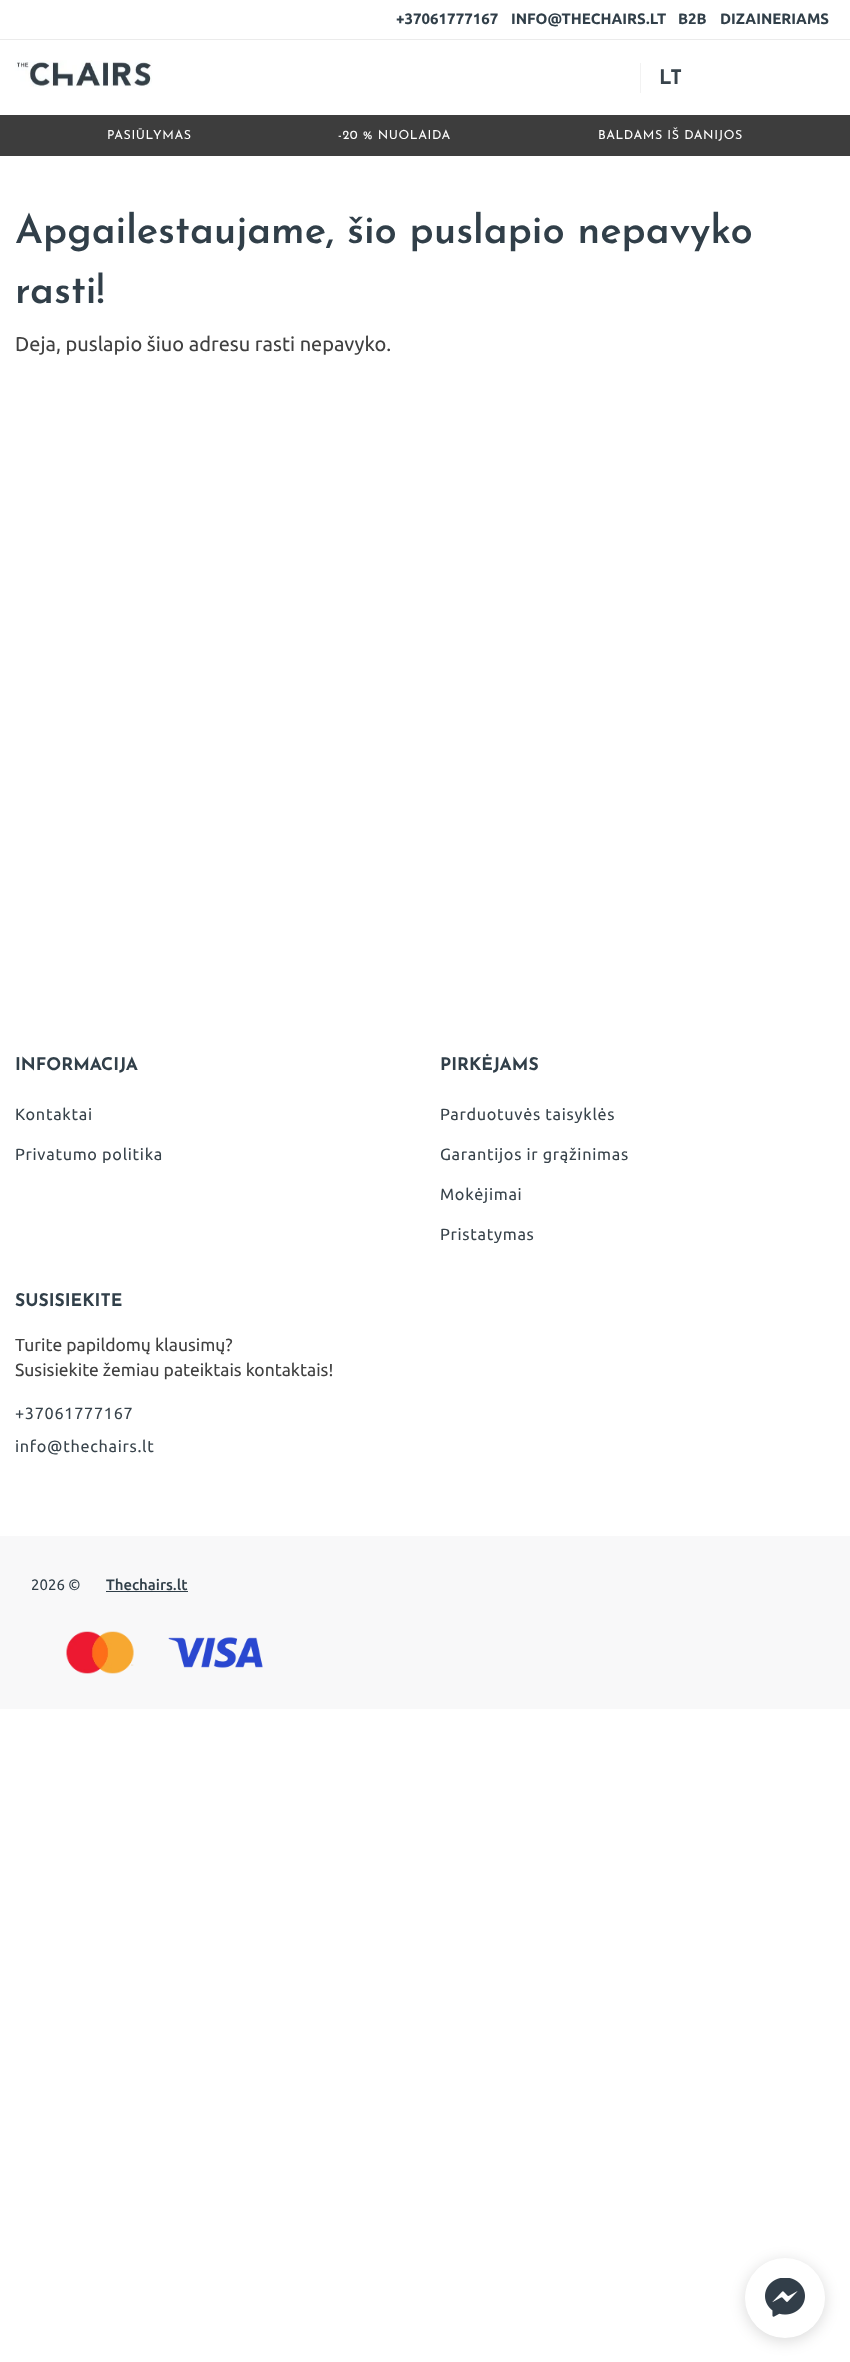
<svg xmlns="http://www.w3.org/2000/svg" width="850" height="2362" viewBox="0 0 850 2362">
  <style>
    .t1 { font: bold 15px Ubuntu; fill: #313f49; }
    .t2 { font: bold 20px Josefin Sans; fill: #38434b; }
    .t3 { font: 12.5px Josefin Sans; letter-spacing: 0.6px; fill: #fff; }
    .t4 { font: 600 40px Josefin Sans; fill: #313f49; }
    .t5 { font: 20px Ubuntu; fill: #404040; }
    .t6 { font: bold 17.5px Josefin Sans; fill: #313f49; }
    .t7 { font: 16.25px Ubuntu; letter-spacing: 0.7px; fill: #38434b; }
    .t8 { font: 17.5px Ubuntu; fill: #404040; }
    .t9 { font: 15px Ubuntu; fill: #313f49; }
    .t10 { font: 500 15px Ubuntu; fill: #313f49; }
  </style>
  <rect width="100%" height="100%" fill="#fff"/>
  <rect x="0" y="39" width="850" height="1" fill="#ebebeb"/>
  <text x="396" y="24" class="t1">+37061777167</text>
  <text x="511" y="24" class="t1">INFO@THECHAIRS.LT</text>
  <text x="678" y="24" class="t1">B2B</text>
  <text x="720" y="24" class="t1">DIZAINERIAMS</text>
  <image x="15" y="60" width="137" height="27" href="images/1.png"/>
  <rect x="640" y="63" width="1" height="30" fill="#f2f2f2"/>
  <text x="659" y="84" class="t2">LT</text>
  <rect x="0" y="115" width="850" height="41" fill="#3d3d3d"/>
  <text x="107" y="139" class="t3">PASIŪLYMAS</text>
  <text x="338" y="139" class="t3">-20 % NUOLAIDA</text>
  <text x="598" y="139" class="t3">BALDAMS IŠ DANIJOS</text>
  <text x="15" y="243" class="t4">Apgailestaujame, šio puslapio nepavyko</text>
  <text x="15" y="303" class="t4">rasti!</text>
  <text x="15" y="351" class="t5">Deja, puslapio šiuo adresu rasti nepavyko.</text>
  <text x="15" y="1070" class="t6">INFORMACIJA</text>
  <text x="15" y="1120" class="t7">Kontaktai</text>
  <text x="15" y="1160" class="t7">Privatumo politika</text>
  <text x="440" y="1070" class="t6">PIRKĖJAMS</text>
  <text x="440" y="1120" class="t7">Parduotuvės taisyklės</text>
  <text x="440" y="1160" class="t7">Garantijos ir grąžinimas</text>
  <text x="440" y="1200" class="t7">Mokėjimai</text>
  <text x="440" y="1240" class="t7">Pristatymas</text>
  <text x="15" y="1306" class="t6">SUSISIEKITE</text>
  <text x="15" y="1351" class="t8">Turite papildomų klausimų?</text>
  <text x="15" y="1376" class="t8">Susisiekite žemiau pateiktais kontaktais!</text>
  <text x="15" y="1419" class="t7">+37061777167</text>
  <text x="15" y="1452" class="t7">info@thechairs.lt</text>
  <rect x="0" y="1536" width="850" height="173" fill="#f8f8f9"/>
  <text x="31" y="1590" class="t9">2026 ©</text>
  <text x="106" y="1590" class="t10">Thechairs.lt</text>
  <rect x="106" y="1591" width="82" height="1" fill="#313f49"/>
  <image x="66" y="1631" width="68" height="43" href="images/2.png"/>
  <image x="168" y="1637" width="95" height="31" href="images/3.png"/>
  <rect x="745" y="2261" width="80" height="80" rx="40" fill="#00000026" filter="blur(7.5px)"/>
  <circle cx="785" cy="2298" r="40" fill="#fff"/>
  <image x="765" y="2278" width="40" height="39" href="images/4.png"/>
</svg>
